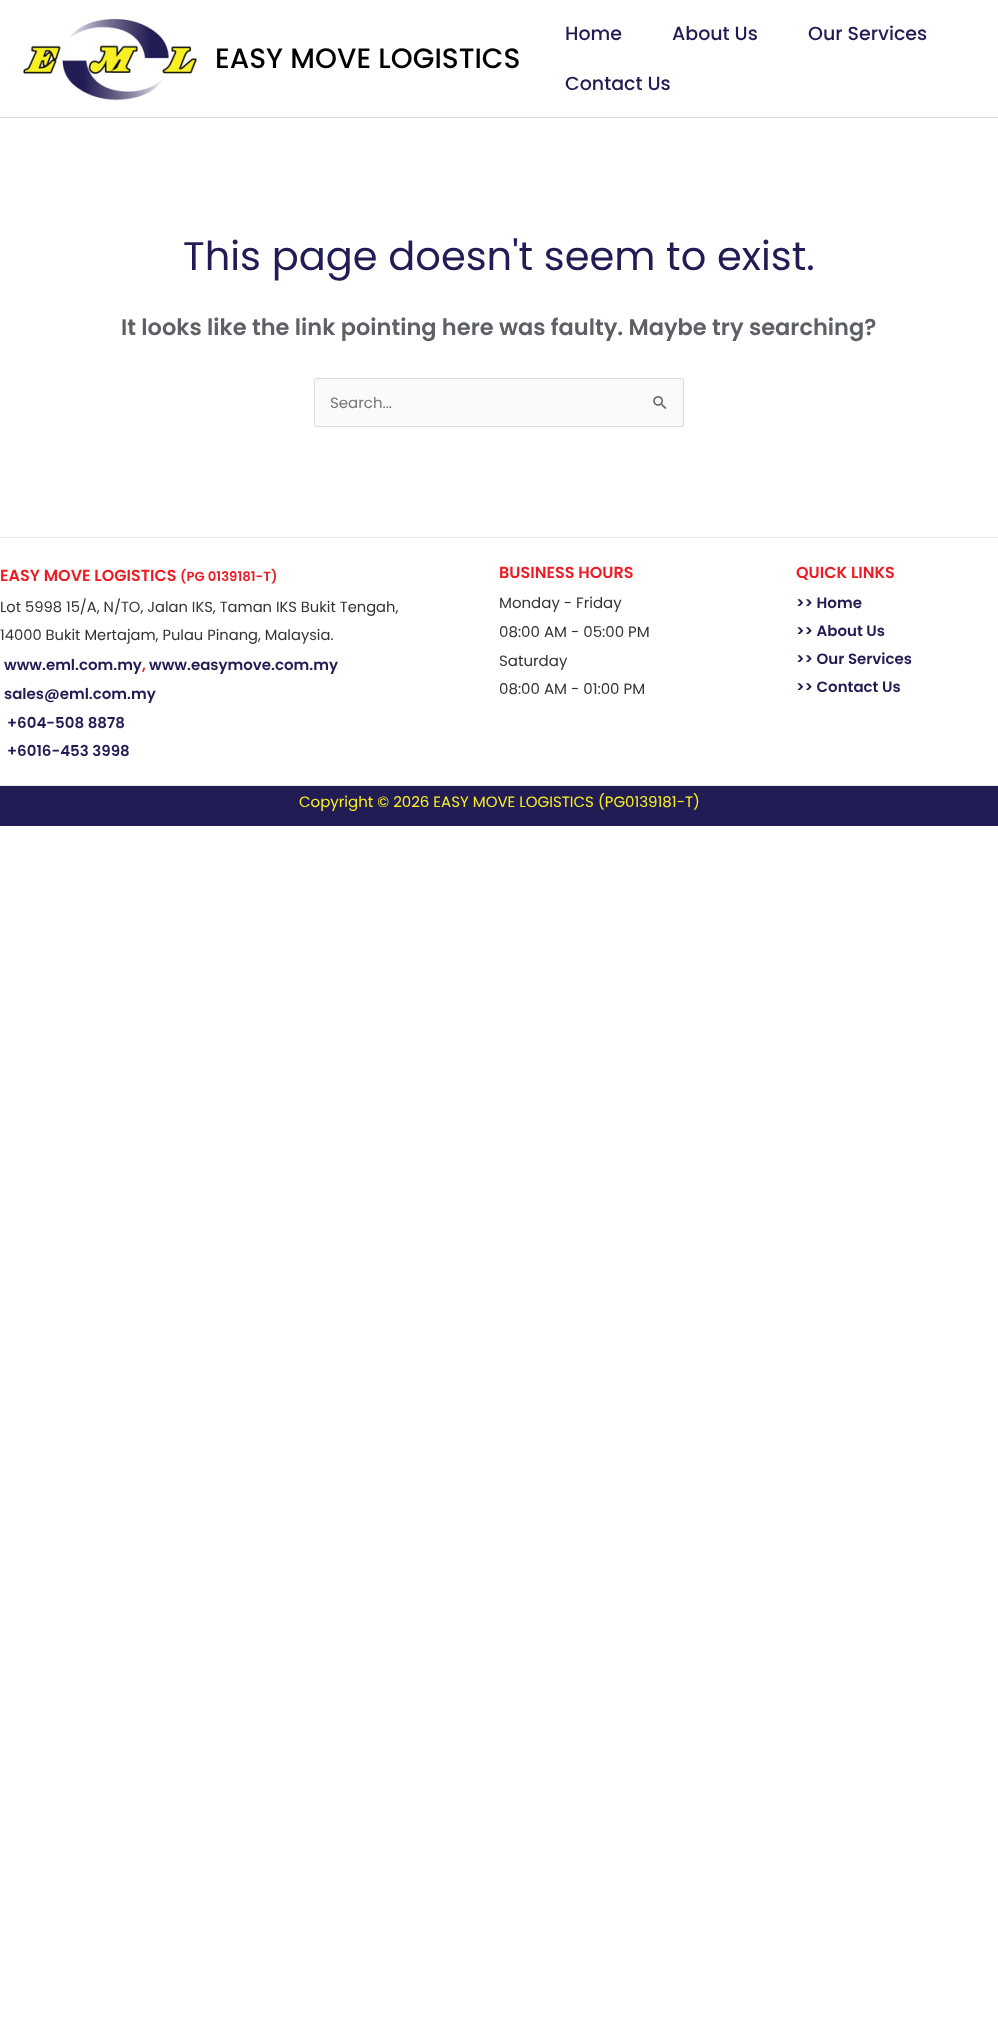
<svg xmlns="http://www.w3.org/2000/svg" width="998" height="2042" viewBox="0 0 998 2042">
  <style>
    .t1 { font: 500 28px Poppins; fill: #000; }
    .t2 { font: 500 19px Poppins; fill: #211c54; }
    .t3 { font: 40px Poppins; fill: #211c54; }
    .t4 { font: 600 22.5px Poppins; fill: #5d6167; }
    .t5 { font: 15px Poppins; fill: #757575; }
    .t6 { font: 600 16px Poppins; fill: #ed1c24; }
    .t7 { font: 600 13.25px Poppins; fill: #ed1c24; }
    .t8 { font: 14.7px Poppins; fill: #333; }
    .t9 { font: 600 15px Poppins; fill: #211c54; }
    .t10 { font: 600 15px Poppins; fill: #ed1c24; }
    .t11 { font: 15px Poppins; fill: #333; }
    .t12 { font: 15px Poppins; fill: #faef24; }
  </style>
  <rect width="100%" height="100%" fill="#fff"/>
  <rect x="0" y="117" width="998" height="1" fill="#ddd"/>
  <image x="23" y="18" width="174" height="83" href="images/1.png"/>
  <text x="215" y="68" class="t1">EASY MOVE LOGISTICS</text>
  <text x="565" y="40" class="t2">Home</text>
  <text x="672" y="40" class="t2">About Us</text>
  <text x="808" y="40" class="t2">Our Services</text>
  <text x="565" y="90" class="t2">Contact Us</text>
  <text x="183" y="270" class="t3">This page doesn't seem to exist.</text>
  <text x="121" y="335" class="t4">It looks like the link pointing here was faulty. Maybe try searching?</text>
  <rect x="314.5" y="378.5" width="369" height="48" rx="1.5" fill="#fafafa" stroke="#ddd"/>
  <text x="330" y="408" class="t5">Search...</text>
  <image x="653" y="396" width="14" height="13" href="images/2.png"/>
  <rect x="0" y="537" width="998" height="1" fill="#e6e6e6"/>
  <text x="0" y="581" class="t6">EASY MOVE LOGISTICS</text>
  <text x="180" y="581" class="t7">(PG 0139181-T)</text>
  <text x="0" y="612" class="t8">Lot 5998 15/A, N/TO, Jalan IKS, Taman IKS Bukit Tengah,</text>
  <text x="0" y="640" class="t8">14000 Bukit Mertajam, Pulau Pinang, Malaysia.</text>
  <text x="4" y="670" class="t9">www.eml.com.my</text>
  <text x="142" y="670" class="t10">,</text>
  <text x="149" y="670" class="t9">www.easymove.com.my</text>
  <text x="4" y="699" class="t9">sales@eml.com.my</text>
  <text x="7" y="728" class="t9">+604-508 8878</text>
  <text x="7" y="756" class="t9">+6016-453 3998</text>
  <text x="499" y="578" class="t6">BUSINESS HOURS</text>
  <text x="499" y="608" class="t11">Monday - Friday</text>
  <text x="499" y="637" class="t11">08:00 AM - 05:00 PM</text>
  <text x="499" y="666" class="t11">Saturday</text>
  <text x="499" y="694" class="t11">08:00 AM - 01:00 PM</text>
  <text x="796" y="578" class="t6">QUICK LINKS</text>
  <text x="796" y="608" class="t9">&gt;&gt; Home</text>
  <text x="796" y="636" class="t9">&gt;&gt; About Us</text>
  <text x="796" y="664" class="t9">&gt;&gt; Our Services</text>
  <text x="796" y="692" class="t9">&gt;&gt; Contact Us</text>
  <rect x="0" y="786" width="998" height="40" fill="#211c54"/>
  <rect x="0" y="785" width="998" height="1" fill="#eaeaea"/>
  <text x="299" y="807" class="t12">Copyright © 2026 EASY MOVE LOGISTICS (PG0139181-T)</text>
</svg>
